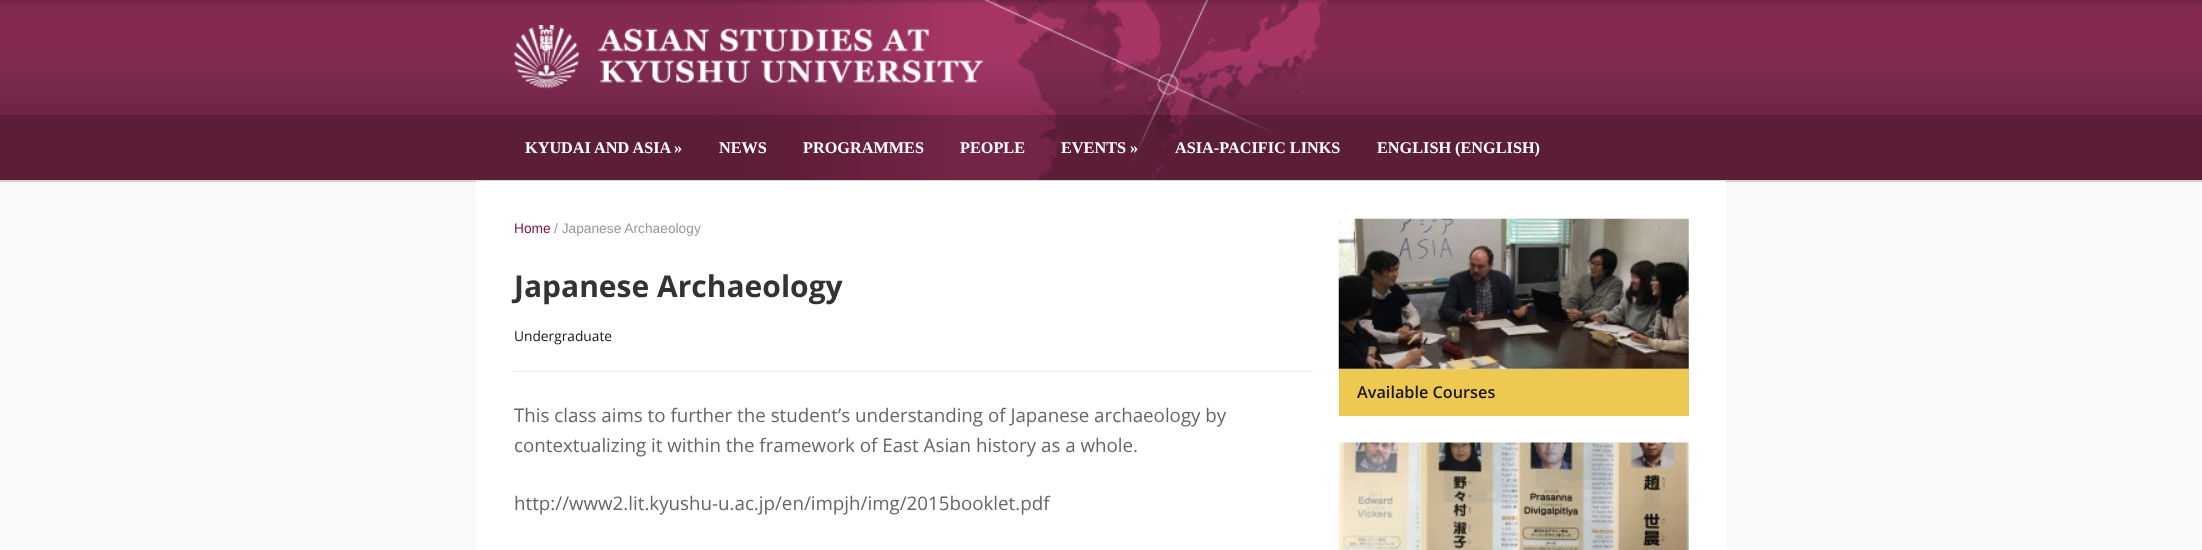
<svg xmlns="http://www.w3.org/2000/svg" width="2202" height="550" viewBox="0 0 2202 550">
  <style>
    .t1 { font: bold 16.25px Liberation Serif; fill: #fff; }
    .t2 { font: 13.75px Liberation Sans; fill: #7c1141; }
    .t3 { font: 13.75px Liberation Sans; fill: #999; }
    .t4 { font: bold 30px Open Sans; fill: #333; }
    .t5 { font: 13.75px Open Sans; fill: #151515; }
    .t6 { font: 18.75px Open Sans; fill: #666; }
    .t7 { font: 600 16.25px Open Sans; fill: #151515; }
  </style>
  <rect width="100%" height="100%" fill="#f9f9f9"/>
  <image x="0" y="0" width="2202" height="182" href="images/1.png"/>
  <image x="0" y="0" width="2202" height="5" href="images/2.png"/>
  <image x="0" y="57" width="2202" height="58" href="images/4.png"/>
  <image x="513" y="25" width="471" height="64" href="images/3.png"/>
  <rect x="0" y="115" width="2202" height="65" fill="#0000004d"/>
  <rect x="0" y="180" width="2202" height="1" fill="#d5d5d5"/>
  <text x="525" y="153" class="t1">KYUDAI AND ASIA</text>
  <text x="674" y="153" class="t1">»</text>
  <text x="719" y="153" class="t1">NEWS</text>
  <text x="803" y="153" class="t1">PROGRAMMES</text>
  <text x="960" y="153" class="t1">PEOPLE</text>
  <text x="1061" y="153" class="t1">EVENTS »</text>
  <text x="1175" y="153" class="t1">ASIA-PACIFIC LINKS</text>
  <text x="1377" y="153" class="t1">ENGLISH (ENGLISH)</text>
  <rect x="476" y="181" width="1250" height="369" fill="#fff"/>
  <text x="514" y="233" class="t2">Home</text>
  <text x="554" y="233" class="t3">/ Japanese Archaeology</text>
  <text x="514" y="297" class="t4">Japanese Archaeology</text>
  <text x="514" y="341" class="t5">Undergraduate</text>
  <rect x="514" y="371" width="800" height="1" fill="#eee"/>
  <text x="514" y="422" class="t6">This class aims to further the student’s understanding of Japanese archaeology by</text>
  <text x="514" y="452" class="t6">contextualizing it within the framework of East Asian history as a whole.</text>
  <text x="514" y="510" class="t6">http://www2.lit.kyushu-u.ac.jp/en/impjh/img/2015booklet.pdf</text>
  <image x="1338" y="218" width="351" height="151" href="images/5.png"/>
  <rect x="1339" y="369" width="350" height="47" fill="#edc951"/>
  <text x="1357" y="398" class="t7">Available Courses</text>
  <image x="1338" y="442" width="351" height="108" href="images/6.png"/>
</svg>
